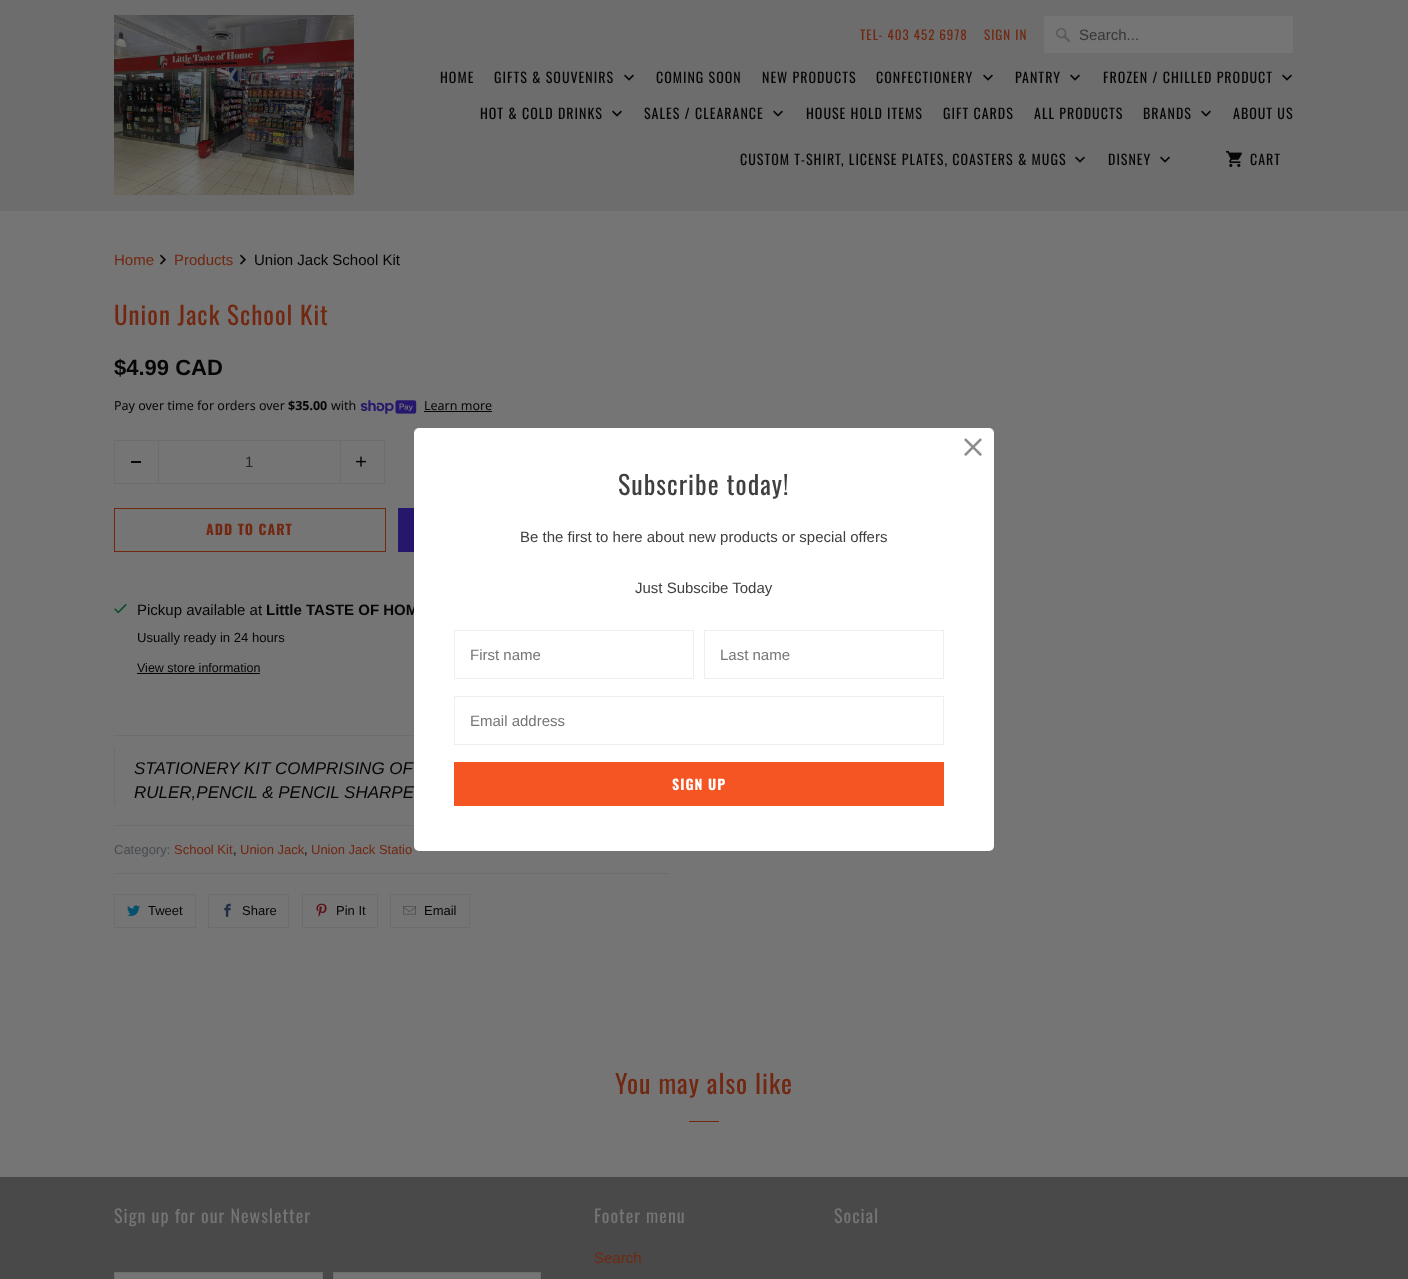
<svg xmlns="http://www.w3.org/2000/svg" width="1408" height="1279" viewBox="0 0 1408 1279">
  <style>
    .t1 { font: 13px Oswald; letter-spacing: 1px; fill: #712710; }
    .t2 { font: 15px Liberation Sans; fill: #363636; }
    .t3 { font: 14px Oswald; letter-spacing: 1px; fill: #060606; }
    .t4 { font: 15px Liberation Sans; fill: #712710; }
    .t5 { font: 15px Liberation Sans; fill: #060606; }
    .t6 { font: 25px Oswald; letter-spacing: 1px; fill: #712710; }
    .t7 { font: bold 22px Liberation Sans; fill: #060606; }
    .t8 { font: 12.5px Noto Sans; fill: #060606; }
    .t9 { font: bold 12.5px Noto Sans; fill: #060606; }
    .t10 { font: 15px Liberation Sans; fill: #25292b; }
    .t11 { font: bold 14px Oswald; letter-spacing: 1px; fill: #712710; }
    .t12 { font: bold 15px Liberation Sans; fill: #060606; }
    .t13 { font: 13.1px Liberation Sans; fill: #060606; }
    .t14 { font: 12.5px Liberation Sans; fill: #060606; }
    .t15 { font: italic 17px Liberation Sans; fill: #060606; }
    .t16 { font: 13px Liberation Sans; fill: #484c50; }
    .t17 { font: 13px Liberation Sans; fill: #712710; }
    .t18 { font: 13px Liberation Sans; fill: #060606; }
    .t19 { font: 26px Oswald; letter-spacing: 1px; fill: #712710; }
    .t20 { font: 26px Oswald; letter-spacing: 1px; fill: #404040; }
    .t21 { font: 15px Liberation Sans; fill: #404040; }
    .t22 { font: 15px Liberation Sans; fill: #757575; }
    .t23 { font: bold 14px Oswald; letter-spacing: 1px; fill: #fff; }
    .t24 { font: 18px Oswald; letter-spacing: 1px; fill: #757575; }
  </style>
  <rect width="100%" height="100%" fill="#757575"/>
  <rect x="0" y="0" width="1408" height="211" fill="#6d6d6d"/>
  <image x="114" y="15" width="240" height="180" href="images/1.png"/>
  <text x="860" y="40" class="t1">TEL- 403 452 6978</text>
  <text x="984" y="40" class="t1">SIGN IN</text>
  <rect x="1044" y="16" width="249" height="37" fill="#757575"/>
  <image x="1056" y="28" width="14" height="14" href="images/2.png"/>
  <text x="1079" y="40" class="t2">Search...</text>
  <text x="440" y="83" class="t3">HOME</text>
  <text x="494" y="83" class="t3">GIFTS &amp; SOUVENIRS</text>
  <image x="624" y="74" width="10" height="7" href="images/3.png"/>
  <text x="656" y="83" class="t3">COMING SOON</text>
  <text x="762" y="83" class="t3">NEW PRODUCTS</text>
  <text x="876" y="83" class="t3">CONFECTIONERY</text>
  <image x="983" y="74" width="10" height="7" href="images/3.png"/>
  <text x="1015" y="83" class="t3">PANTRY</text>
  <image x="1070" y="74" width="10" height="7" href="images/3.png"/>
  <text x="1103" y="83" class="t3">FROZEN / CHILLED PRODUCT</text>
  <image x="1282" y="74" width="10" height="7" href="images/3.png"/>
  <text x="480" y="119" class="t3">HOT &amp; COLD DRINKS</text>
  <image x="612" y="110" width="10" height="7" href="images/3.png"/>
  <text x="644" y="119" class="t3">SALES / CLEARANCE</text>
  <image x="773" y="110" width="10" height="7" href="images/3.png"/>
  <text x="806" y="119" class="t3">HOUSE HOLD ITEMS</text>
  <text x="943" y="119" class="t3">GIFT CARDS</text>
  <text x="1034" y="119" class="t3">ALL PRODUCTS</text>
  <text x="1143" y="119" class="t3">BRANDS</text>
  <image x="1201" y="110" width="10" height="7" href="images/3.png"/>
  <text x="1233" y="119" class="t3">ABOUT US</text>
  <text x="740" y="165" class="t3">CUSTOM T-SHIRT, LICENSE PLATES, COASTERS &amp; MUGS</text>
  <image x="1075" y="156" width="10" height="7" href="images/3.png"/>
  <text x="1108" y="165" class="t3">DISNEY</text>
  <image x="1160" y="156" width="10" height="7" href="images/3.png"/>
  <image x="1226" y="151" width="16" height="16" href="images/4.png"/>
  <text x="1250" y="165" class="t3">CART</text>
  <text x="114" y="265" class="t4">Home</text>
  <image x="160" y="254" width="6" height="11" href="images/5.png"/>
  <text x="174" y="265" class="t4">Products</text>
  <image x="240" y="254" width="6" height="11" href="images/5.png"/>
  <text x="254" y="265" class="t5">Union Jack School Kit</text>
  <text x="114" y="325" class="t6">Union Jack School Kit</text>
  <text x="114" y="375" class="t7">$4.99 CAD</text>
  <text x="114" y="410" class="t8">Pay over time for orders over</text>
  <text x="288" y="410" class="t9">$35.00</text>
  <text x="331" y="410" class="t8">with</text>
  <image x="360" y="400" width="57" height="14" href="images/6.png"/>
  <text x="424" y="410" class="t8">Learn more</text>
  <rect x="424" y="411" width="68" height="1" fill="#060606"/>
  <rect x="114" y="440" width="44" height="1" fill="#6d6d6d"/>
  <rect x="114" y="483" width="44" height="1" fill="#6d6d6d"/>
  <rect x="114" y="440" width="1" height="44" fill="#6d6d6d"/>
  <rect x="131" y="461" width="10" height="2" fill="#060606"/>
  <rect x="158.5" y="440.5" width="182" height="43" fill="none" stroke="#6d6d6d"/>
  <text x="245" y="467" class="t10">1</text>
  <rect x="341" y="440" width="44" height="1" fill="#6d6d6d"/>
  <rect x="384" y="440" width="1" height="44" fill="#6d6d6d"/>
  <rect x="341" y="483" width="44" height="1" fill="#6d6d6d"/>
  <image x="356" y="456" width="10" height="11" href="images/7.png"/>
  <rect x="114.5" y="508.5" width="271" height="43" fill="none" stroke="#712710"/>
  <text x="206" y="535" class="t11">ADD TO CART</text>
  <rect x="398" y="508" width="16" height="44" fill="#27176c"/>
  <image x="114" y="604" width="13" height="10" href="images/8.png"/>
  <text x="137" y="615" class="t5">Pickup available at</text>
  <text x="266" y="615" class="t12">Little TASTE OF HOM</text>
  <text x="137" y="642" class="t13">Usually ready in 24 hours</text>
  <text x="137" y="672" class="t14">View store information</text>
  <rect x="137" y="673" width="123" height="1" fill="#060606"/>
  <rect x="114" y="735" width="300" height="1" fill="#6d6d6d"/>
  <rect x="114" y="748" width="1" height="57" fill="#6d6d6d"/>
  <text x="134" y="774" class="t15">STATIONERY KIT COMPRISING OF</text>
  <text x="134" y="798" class="t15">RULER,PENCIL &amp; PENCIL SHARPE</text>
  <rect x="114" y="825" width="300" height="1" fill="#6d6d6d"/>
  <text x="114" y="854" class="t16">Category:</text>
  <text x="174" y="854" class="t17">School Kit</text>
  <text x="233" y="854" class="t18">,</text>
  <text x="240" y="854" class="t17">Union Jack</text>
  <text x="304" y="854" class="t18">,</text>
  <text x="311" y="854" class="t17">Union Jack Statio</text>
  <rect x="114" y="873" width="555" height="1" fill="#6d6d6d"/>
  <rect x="114.5" y="894.5" width="81" height="33" fill="none" stroke="#6d6d6d"/>
  <image x="127" y="905" width="13" height="11" href="images/9.png"/>
  <text x="148" y="915" class="t18">Tweet</text>
  <rect x="208.5" y="894.5" width="80" height="33" fill="none" stroke="#6d6d6d"/>
  <image x="224" y="903" width="7" height="14" href="images/10.png"/>
  <text x="242" y="915" class="t18">Share</text>
  <rect x="302.5" y="894.5" width="75" height="33" fill="none" stroke="#6d6d6d"/>
  <image x="316" y="903" width="11" height="14" href="images/11.png"/>
  <text x="336" y="915" class="t18">Pin It</text>
  <rect x="390.5" y="894.5" width="79" height="33" fill="none" stroke="#6d6d6d"/>
  <image x="403" y="906" width="13" height="9" href="images/12.png"/>
  <text x="424" y="915" class="t18">Email</text>
  <text x="615" y="1094" class="t19">You may also like</text>
  <rect x="689" y="1121" width="30" height="1" fill="#712710"/>
  <rect x="414" y="428" width="580" height="423" rx="5" fill="#fff"/>
  <image x="964" y="438" width="18" height="18" href="images/13.png"/>
  <text x="618" y="495" class="t20">Subscribe today!</text>
  <text x="520" y="542" class="t21">Be the first to here about new products or special offers</text>
  <text x="635" y="593" class="t21">Just Subscibe Today</text>
  <rect x="454.5" y="630.5" width="239" height="48" fill="none" stroke="#eee"/>
  <text x="470" y="660" class="t22">First name</text>
  <rect x="704.5" y="630.5" width="239" height="48" fill="none" stroke="#eee"/>
  <text x="720" y="660" class="t22">Last name</text>
  <rect x="454.5" y="696.5" width="489" height="48" fill="none" stroke="#eee"/>
  <text x="470" y="726" class="t22">Email address</text>
  <rect x="454" y="762" width="490" height="44" fill="#f55423"/>
  <text x="672" y="790" class="t23">SIGN UP</text>
  <rect x="0" y="1177" width="1408" height="102" fill="#4a4949"/>
  <text x="114" y="1223" class="t24">Sign up for our Newsletter</text>
  <rect x="114.5" y="1272.5" width="208" height="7" fill="#757575" stroke="#6d6d6d"/>
  <rect x="333.5" y="1272.5" width="207" height="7" fill="#757575" stroke="#6d6d6d"/>
  <text x="594" y="1223" class="t24">Footer menu</text>
  <text x="594" y="1263" class="t4">Search</text>
  <text x="834" y="1223" class="t24">Social</text>
</svg>
